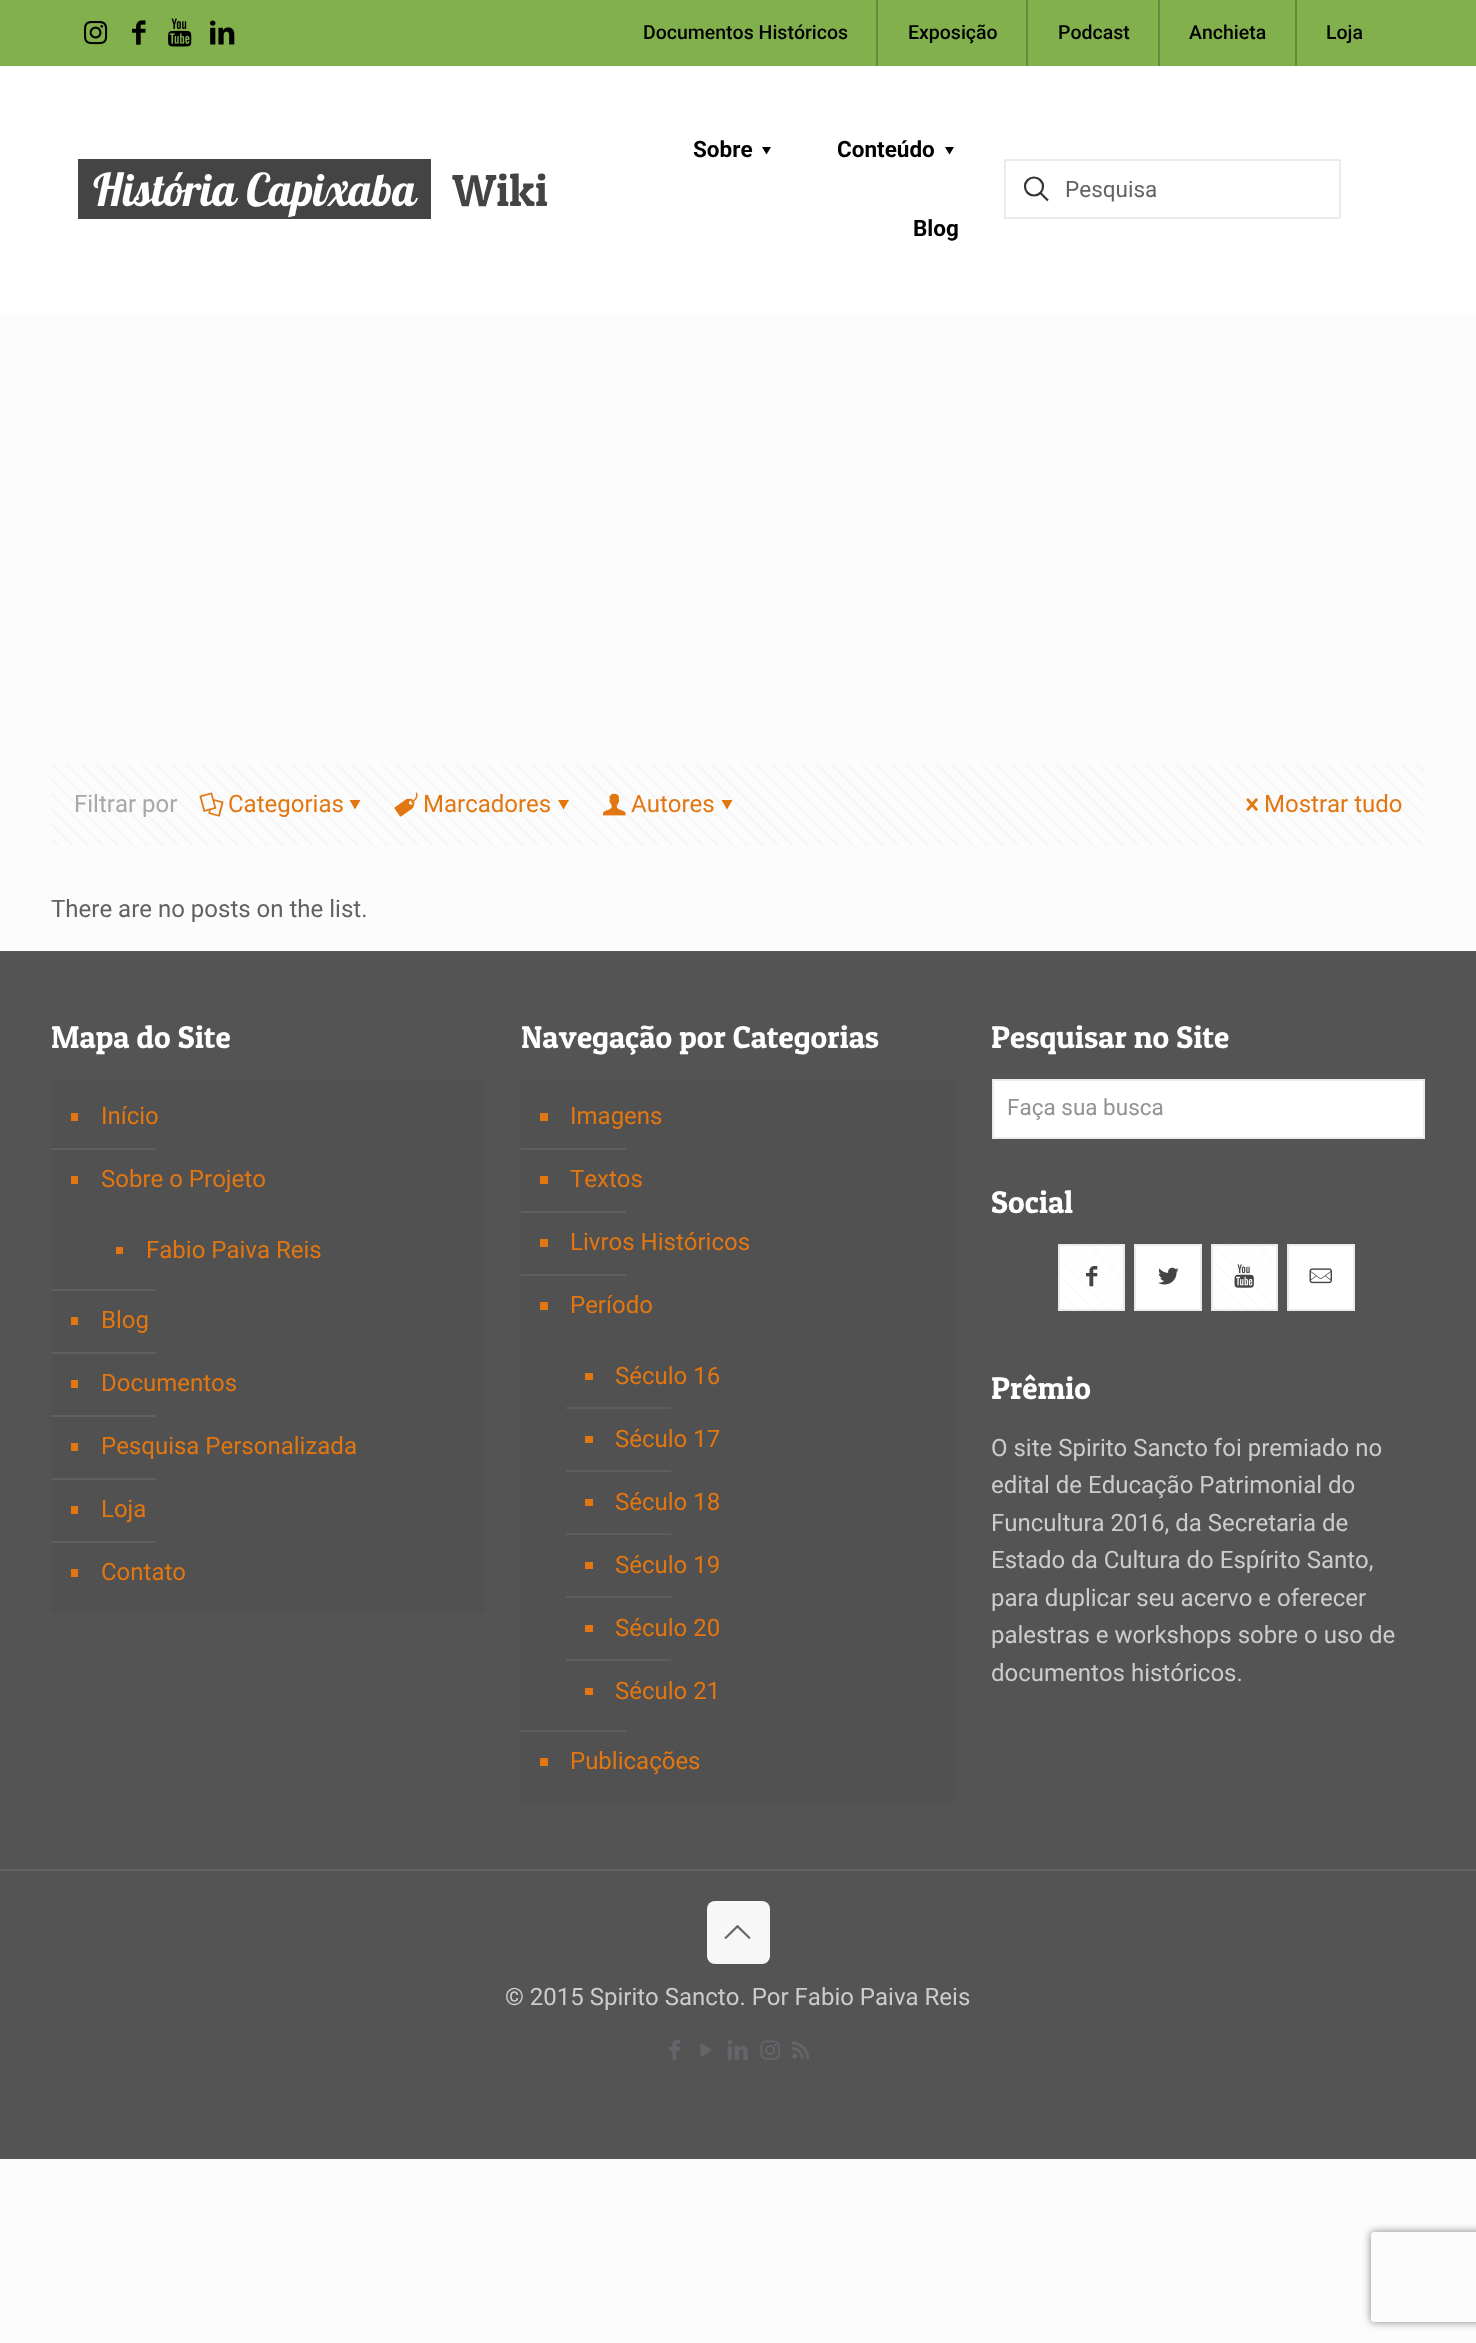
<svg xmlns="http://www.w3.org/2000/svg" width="1476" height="2343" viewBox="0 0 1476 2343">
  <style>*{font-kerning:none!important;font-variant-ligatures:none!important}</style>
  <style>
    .t1 { font: 500 19.5px Roboto; fill: #000; }
    .t2 { font: 45px Lobster; fill: #fff; }
    .t3 { font: 45px Patua One; fill: #444; }
    .t4 { font: bold 22.5px Roboto; fill: #000; }
    .t5 { font: 22.5px Roboto; fill: #626262; }
    .t6 { font: 24px Roboto; fill: #a8a8a8; }
    .t7 { font: 24px Roboto; fill: #e27712; }
    .t8 { font: 24px Roboto; fill: #626262; }
    .t9 { font: 31.5px Patua One; fill: #fff; }
    .t10 { font: 22.5px Roboto; fill: #929292; }
    .t11 { font: 24px Roboto; fill: #ccc; }
  </style>
  <defs>
    <clipPath id="clip1"><path d="M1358 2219H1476V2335H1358ZM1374 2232H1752C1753.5 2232 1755 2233.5 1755 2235V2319C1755 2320.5 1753.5 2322 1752 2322H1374C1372.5 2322 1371 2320.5 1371 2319V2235C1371 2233.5 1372.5 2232 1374 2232Z" clip-rule="evenodd"/></clipPath>
  </defs>
  <rect width="100%" height="100%" fill="#fcfcfc"/>
  <rect x="0" y="0" width="1476" height="66" fill="#82b04d"/>
  <image x="84" y="21" width="24" height="24" href="images/1.png"/>
  <image x="132" y="20" width="14" height="25" href="images/2.png"/>
  <image x="168" y="18" width="24" height="29" href="images/3.png"/>
  <image x="210" y="20" width="25" height="25" href="images/4.png"/>
  <text x="643" y="39" class="t1">Documentos Históricos</text>
  <rect x="876" y="0" width="2" height="66" fill="#678b3d"/>
  <text x="908" y="39" class="t1">Exposição</text>
  <rect x="1026" y="0" width="2" height="66" fill="#678b3d"/>
  <text x="1058" y="39" class="t1">Podcast</text>
  <rect x="1158" y="0" width="2" height="66" fill="#678b3d"/>
  <text x="1189" y="39" class="t1">Anchieta</text>
  <rect x="1295" y="0" width="2" height="66" fill="#678b3d"/>
  <text x="1326" y="39" class="t1">Loja</text>
  <rect x="0" y="66" width="1476" height="248" fill="#fff"/>
  <rect x="78" y="159" width="353" height="60" fill="#444"/>
  <text x="93" y="206" class="t2">História Capixaba</text>
  <text x="452" y="206" class="t3">Wiki</text>
  <text x="693" y="157" class="t4">Sobre</text>
  <path d="M771 147L766.5 154.5L762 147Z" fill="#000"/>
  <text x="837" y="157" class="t4">Conteúdo</text>
  <path d="M954 147L949.5 154.5L945 147Z" fill="#000"/>
  <text x="913" y="236" class="t4">Blog</text>
  <rect x="1005" y="160" width="335" height="58" fill="none" stroke="#ebebeb" stroke-width="2"/>
  <circle cx="1034" cy="186.5" r="9" fill="none" stroke="#333" stroke-width="2.2"/>
  <path d="M1040.5 193L1048 200.5" fill="none" stroke="#333" stroke-width="2.2"/>
  <text x="1065" y="197" class="t5">Pesquisa</text>
  <image x="51" y="764" width="1374" height="82" href="images/5.png"/>
  <text x="74" y="812" class="t6">Filtrar por</text>
  <image x="199" y="792" width="25" height="25" href="images/6.png"/>
  <text x="228" y="812" class="t7">Categorias</text>
  <path d="M360.5 800L355 809.5L349.5 800Z" fill="#e27712"/>
  <image x="394" y="792" width="24" height="25" href="images/7.png"/>
  <text x="423" y="812" class="t7">Marcadores</text>
  <path d="M569 800L563.5 809.5L558 800Z" fill="#e27712"/>
  <image x="603" y="793" width="23" height="23" href="images/8.png"/>
  <text x="631" y="812" class="t7">Autores</text>
  <path d="M732.5 800L727 809.5L721.5 800Z" fill="#e27712"/>
  <image x="1246" y="798" width="12" height="13" href="images/9.png"/>
  <text x="1264" y="812" class="t7">Mostrar tudo</text>
  <text x="51" y="917" class="t8">There are no posts on the list.</text>
  <rect x="0" y="951" width="1476" height="1208" fill="#545454"/>
  <text x="51" y="1048" class="t9">Mapa do Site</text>
  <rect x="51" y="1079" width="434" height="534" fill="#515151"/>
  <rect x="71" y="1113" width="7" height="8" fill="#e27712"/>
  <text x="101" y="1124" class="t7">Início</text>
  <rect x="51" y="1148" width="105" height="2" fill="#5f5f5f"/>
  <rect x="71" y="1176" width="7" height="8" fill="#e27712"/>
  <text x="101" y="1187" class="t7">Sobre o Projeto</text>
  <rect x="116" y="1247" width="7" height="7" fill="#e27712"/>
  <text x="146" y="1258" class="t7">Fabio Paiva Reis</text>
  <rect x="51" y="1289" width="105" height="2" fill="#5e5e5e"/>
  <rect x="71" y="1317" width="7" height="8" fill="#e27712"/>
  <text x="101" y="1328" class="t7">Blog</text>
  <rect x="51" y="1352" width="105" height="2" fill="#5f5f5f"/>
  <rect x="71" y="1380" width="7" height="8" fill="#e27712"/>
  <text x="101" y="1391" class="t7">Documentos</text>
  <rect x="51" y="1415" width="105" height="2" fill="#5f5f5f"/>
  <rect x="71" y="1443" width="7" height="8" fill="#e27712"/>
  <text x="101" y="1454" class="t7">Pesquisa Personalizada</text>
  <rect x="51" y="1478" width="105" height="2" fill="#5f5f5f"/>
  <rect x="71" y="1506" width="7" height="8" fill="#e27712"/>
  <text x="101" y="1517" class="t7">Loja</text>
  <rect x="51" y="1541" width="105" height="2" fill="#5f5f5f"/>
  <rect x="71" y="1569" width="7" height="8" fill="#e27712"/>
  <text x="101" y="1580" class="t7">Contato</text>
  <text x="521" y="1048" class="t9">Navegação por Categorias</text>
  <rect x="521" y="1079" width="435" height="723" fill="#515151"/>
  <rect x="540" y="1113" width="8" height="8" fill="#e27712"/>
  <text x="570" y="1124" class="t7">Imagens</text>
  <rect x="521" y="1148" width="105" height="2" fill="#5f5f5f"/>
  <rect x="540" y="1176" width="8" height="8" fill="#e27712"/>
  <text x="570" y="1187" class="t7">Textos</text>
  <rect x="521" y="1211" width="105" height="2" fill="#5f5f5f"/>
  <rect x="540" y="1239" width="8" height="8" fill="#e27712"/>
  <text x="570" y="1250" class="t7">Livros Históricos</text>
  <rect x="521" y="1274" width="105" height="2" fill="#5f5f5f"/>
  <rect x="540" y="1302" width="8" height="8" fill="#e27712"/>
  <text x="570" y="1313" class="t7">Período</text>
  <rect x="585" y="1373" width="8" height="7" fill="#e27712"/>
  <text x="615" y="1384" class="t7">Século 16</text>
  <rect x="566" y="1407" width="105" height="2" fill="#5d5d5d"/>
  <rect x="585" y="1436" width="8" height="7" fill="#e27712"/>
  <text x="615" y="1447" class="t7">Século 17</text>
  <rect x="566" y="1470" width="105" height="2" fill="#5d5d5d"/>
  <rect x="585" y="1499" width="8" height="7" fill="#e27712"/>
  <text x="615" y="1510" class="t7">Século 18</text>
  <rect x="566" y="1533" width="105" height="2" fill="#5d5d5d"/>
  <rect x="585" y="1562" width="8" height="7" fill="#e27712"/>
  <text x="615" y="1573" class="t7">Século 19</text>
  <rect x="566" y="1596" width="105" height="2" fill="#5d5d5d"/>
  <rect x="585" y="1625" width="8" height="7" fill="#e27712"/>
  <text x="615" y="1636" class="t7">Século 20</text>
  <rect x="566" y="1659" width="105" height="2" fill="#5d5d5d"/>
  <rect x="585" y="1688" width="8" height="7" fill="#e27712"/>
  <text x="615" y="1699" class="t7">Século 21</text>
  <rect x="521" y="1730" width="105" height="2" fill="#5e5e5e"/>
  <rect x="540" y="1758" width="8" height="8" fill="#e27712"/>
  <text x="570" y="1769" class="t7">Publicações</text>
  <text x="991" y="1048" class="t9">Pesquisar no Site</text>
  <rect x="993" y="1080" width="431" height="58" fill="#fff" stroke="#ebebeb" stroke-width="2"/>
  <text x="1007" y="1115" class="t10">Faça sua busca</text>
  <text x="991" y="1213" class="t9">Social</text>
  <rect x="1058" y="1244" width="67" height="67" fill="#fff"/>
  <image x="1058" y="1244" width="67" height="67" href="images/10.png"/>
  <rect x="1059" y="1245" width="65" height="65" fill="none" stroke="#00000014" stroke-width="2"/>
  <image x="1086" y="1266" width="12" height="21" href="images/11.png"/>
  <rect x="1134" y="1244" width="68" height="67" fill="#fff"/>
  <rect x="1135" y="1245" width="66" height="65" fill="none" stroke="#00000014" stroke-width="2"/>
  <image x="1158" y="1267" width="21" height="18" href="images/12.png"/>
  <rect x="1211" y="1244" width="67" height="67" fill="#fff"/>
  <image x="1211" y="1244" width="67" height="67" href="images/10.png"/>
  <rect x="1212" y="1245" width="65" height="65" fill="none" stroke="#00000014" stroke-width="2"/>
  <image x="1234" y="1264" width="20" height="24" href="images/13.png"/>
  <rect x="1287" y="1244" width="68" height="67" fill="#fff"/>
  <rect x="1288" y="1245" width="66" height="65" fill="none" stroke="#00000014" stroke-width="2"/>
  <image x="1309" y="1268" width="23" height="16" href="images/14.png"/>
  <text x="991" y="1399" class="t9">Prêmio</text>
  <text x="991" y="1456" class="t11">O site Spirito Sancto foi premiado no</text>
  <text x="991" y="1493" class="t11">edital de Educação Patrimonial do</text>
  <text x="991" y="1531" class="t11">Funcultura 2016, da Secretaria de</text>
  <text x="991" y="1568" class="t11">Estado da Cultura do Espírito Santo,</text>
  <text x="991" y="1606" class="t11">para duplicar seu acervo e oferecer</text>
  <text x="991" y="1643" class="t11">palestras e workshops sobre o uso de</text>
  <text x="991" y="1681" class="t11">documentos históricos.</text>
  <rect x="0" y="1869" width="1476" height="2" fill="#656565"/>
  <rect x="707" y="1901" width="63" height="63" rx="8" fill="#f7f7f7"/>
  <image x="724" y="1925" width="27" height="14" href="images/15.png"/>
  <text x="505" y="2005" class="t11">© 2015 Spirito Sancto. Por Fabio Paiva Reis</text>
  <image x="669" y="2040" width="12" height="21" href="images/16.png"/>
  <image x="700" y="2043" width="12" height="14" href="images/17.png"/>
  <image x="727" y="2040" width="21" height="20" href="images/18.png"/>
  <image x="760" y="2040" width="20" height="20" href="images/19.png"/>
  <image x="792" y="2041" width="17" height="18" href="images/20.png"/>
  <g clip-path="url(#clip1)">
    <rect x="1371" y="2232" width="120" height="90" rx="3" fill="#808080" filter="blur(4px)"/>
  </g>
</svg>
